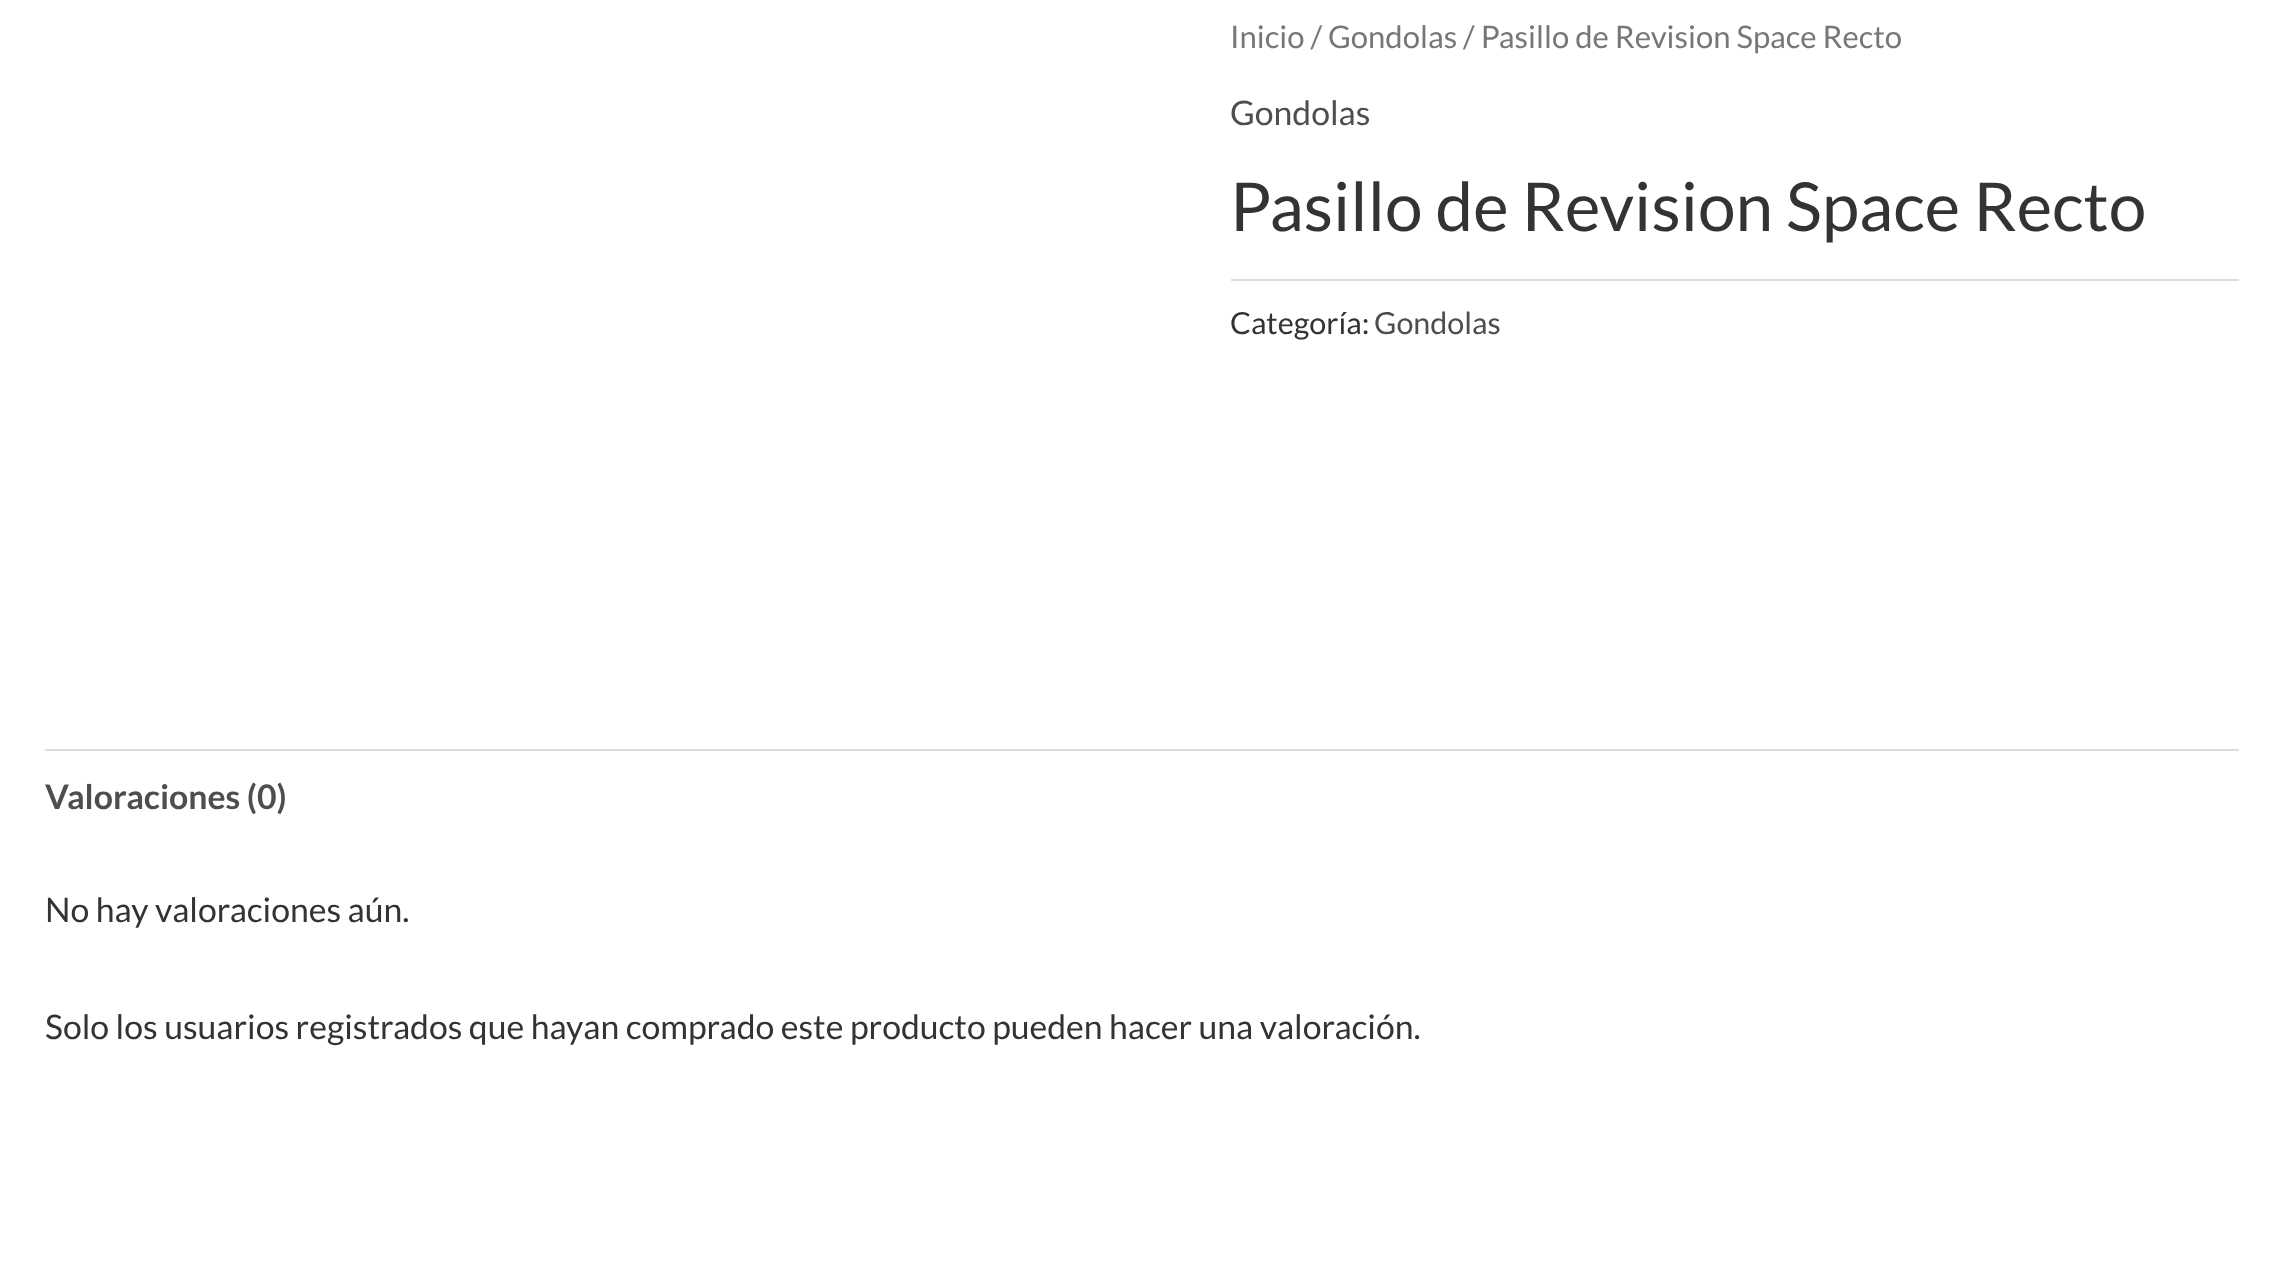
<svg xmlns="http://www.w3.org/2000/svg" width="2282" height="1277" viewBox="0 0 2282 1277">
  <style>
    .t1 { font: 31.05px Lato; fill: #777; }
    .t2 { font: 33.75px Lato; fill: #4e4e4e; }
    .t3 { font: 67.5px Lato; fill: #333; }
    .t4 { font: 30.5px Lato; fill: #333; }
    .t5 { font: 30.5px Lato; fill: #4e4e4e; }
    .t6 { font: bold 33.75px Lato; fill: #4e4e4e; }
    .t7 { font: 33.75px Lato; fill: #333; }
  </style>
  <rect width="100%" height="100%" fill="#fff"/>
  <text x="1230" y="48" class="t1">Inicio / Gondolas / Pasillo de Revision Space Recto</text>
  <text x="1230" y="125" class="t2">Gondolas</text>
  <text x="1230" y="231" class="t3">Pasillo de Revision Space Recto</text>
  <rect x="1231" y="279" width="1008" height="2" fill="#ddd"/>
  <text x="1230" y="334" class="t4">Categoría:</text>
  <text x="1374" y="334" class="t5">Gondolas</text>
  <rect x="45" y="749" width="2194" height="2" fill="#ddd"/>
  <text x="45" y="809" class="t6">Valoraciones (0)</text>
  <text x="45" y="922" class="t7">No hay valoraciones aún.</text>
  <text x="45" y="1039" class="t7">Solo los usuarios registrados que hayan comprado este producto pueden hacer una valoración.</text>
</svg>
